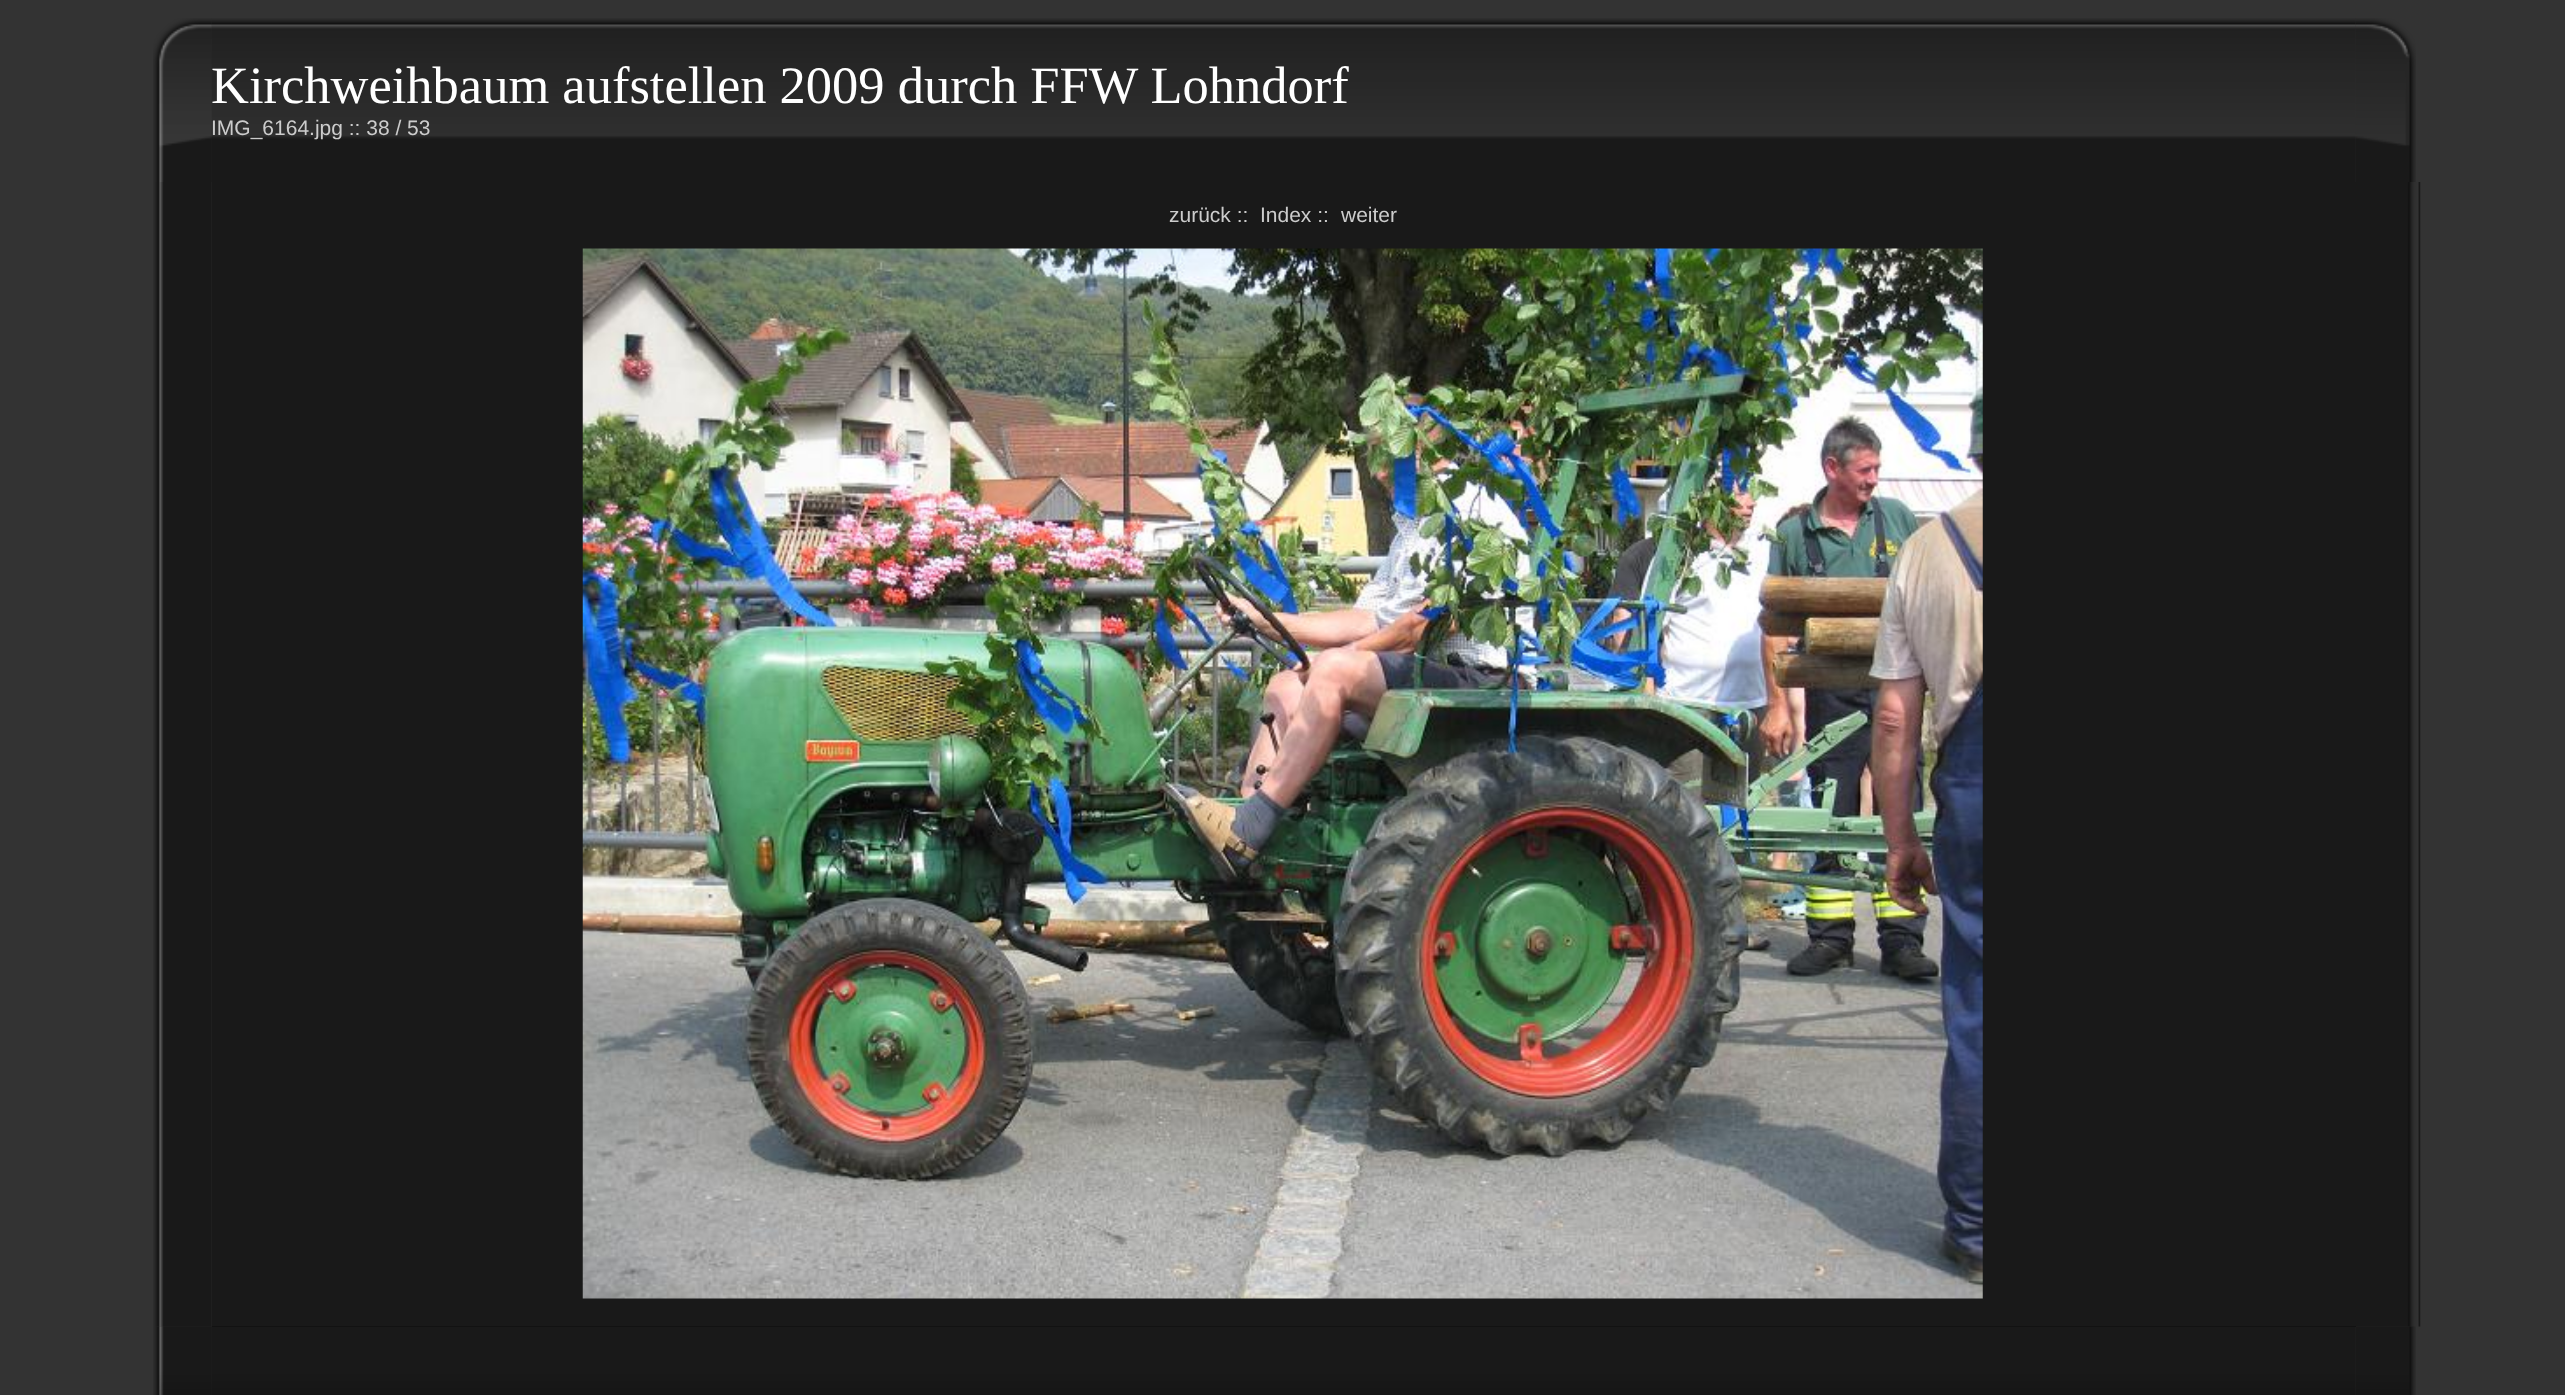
<svg xmlns="http://www.w3.org/2000/svg" width="2565" height="1395" viewBox="0 0 2565 1395">
  <style>
    .t1 { font: 52.5px Liberation Serif; fill: #fff; }
    .t2 { font: 21px Liberation Sans; fill: #ccc; }
  </style>
  <rect width="100%" height="100%" fill="#333"/>
  <image x="153" y="18" width="59" height="164" href="images/1.png"/>
  <image x="211" y="18" width="2145" height="164" href="images/2.png"/>
  <text x="211" y="103" class="t1">Kirchweihbaum aufstellen 2009 durch FFW Lohndorf</text>
  <text x="211" y="135" class="t2">IMG_6164.jpg :: 38 / 53</text>
  <image x="2355" y="18" width="61" height="164" href="images/3.png"/>
  <image x="153" y="182" width="59" height="1145" href="images/4.png"/>
  <rect x="212" y="182" width="2144" height="1145" fill="#191919"/>
  <text x="1169" y="222" class="t2">zurück ::</text>
  <text x="1260" y="222" class="t2">Index ::</text>
  <text x="1341" y="222" class="t2">weiter</text>
  <image x="582" y="248" width="1401" height="1051" href="images/5.png"/>
  <image x="2356" y="182" width="65" height="1145" href="images/6.png"/>
  <image x="153" y="1326" width="59" height="69" href="images/7.png"/>
  <image x="211" y="1326" width="2145" height="69" href="images/8.png"/>
  <image x="2355" y="1326" width="61" height="69" href="images/9.png"/>
</svg>
